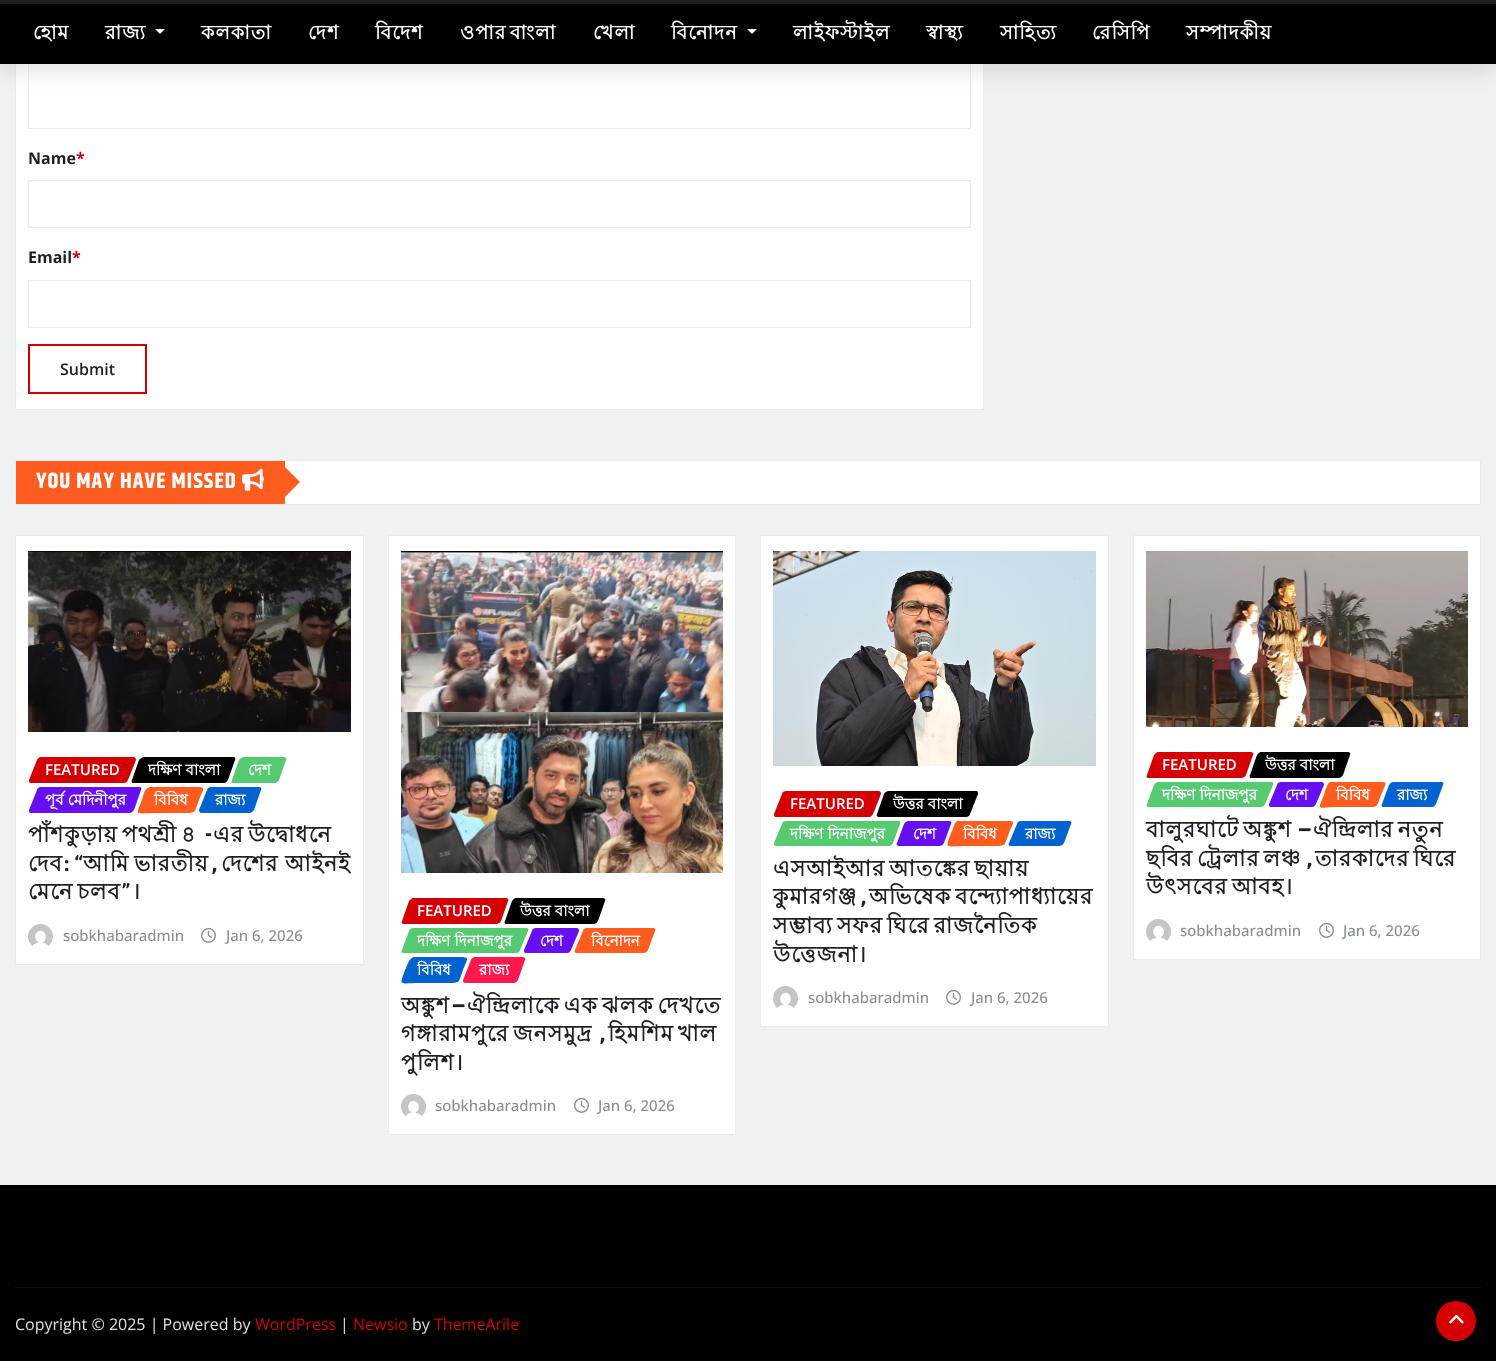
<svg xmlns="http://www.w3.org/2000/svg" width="1496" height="1361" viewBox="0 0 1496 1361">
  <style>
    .t1 { font: bold 19.25px Lohit Bengali; letter-spacing: 1px; fill: #fff; }
    .t2 { font: bold 16px Open Sans; fill: #1f2024; }
    .t3 { font: bold 16px Open Sans; fill: #d40004; }
    .t4 { font: 600 16px Open Sans; fill: #1f2024; }
    .t5 { font: bold 22px Khand; letter-spacing: 1px; fill: #fff; }
    .t6 { font: 600 15px Open Sans; fill: #fff; }
    .t7 { font: bold 15px Lohit Bengali; fill: #fff; }
    .t8 { font: bold 22px Lohit Bengali; letter-spacing: 1px; fill: #1f2024; }
    .t9 { font: bold 22px Khand; letter-spacing: 1px; fill: #1f2024; }
    .t10 { font: 500 15px Open Sans; fill: #878e94; }
    .t11 { font: 16px Open Sans; fill: #e0e0e0; }
    .t12 { font: 16px Open Sans; fill: #d40004; }
  </style>
  <rect width="100%" height="100%" fill="#f0f1f3"/>
  <rect x="16" y="64" width="967" height="345" fill="#fff"/>
  <rect x="15.5" y="-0.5" width="968" height="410" fill="none" stroke="#ebebeb"/>
  <rect x="28.5" y="-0.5" width="942" height="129" fill="none" stroke="#ebebeb"/>
  <rect x="0" y="8" width="1496" height="64" fill="#0000001a" filter="blur(10px)"/>
  <rect x="0" y="4" width="1496" height="60" fill="#000"/>
  <rect x="0" y="0" width="1496" height="4" fill="#202020"/>
  <text x="33" y="39" class="t1">হোম</text>
  <text x="105" y="39" class="t1">রাজ্য</text>
  <path d="M155 29H165L160 34Z" fill="#fff"/>
  <text x="201" y="39" class="t1">কলকাতা</text>
  <text x="308" y="39" class="t1">দেশ</text>
  <text x="375" y="39" class="t1">বিদেশ</text>
  <text x="460" y="39" word-spacing="-3" class="t1">ওপার বাংলা</text>
  <text x="593" y="39" class="t1">খেলা</text>
  <text x="671" y="39" class="t1">বিনোদন</text>
  <path d="M747 29H757L752 34Z" fill="#fff"/>
  <text x="793" y="39" class="t1">লাইফস্টাইল</text>
  <text x="926" y="39" class="t1">স্বাস্থ্য</text>
  <text x="1000" y="39" class="t1">সাহিত্য</text>
  <text x="1092" y="39" class="t1">রেসিপি</text>
  <text x="1186" y="39" class="t1">সম্পাদকীয়</text>
  <text x="28" y="164" class="t2">Name</text>
  <text x="76" y="164" class="t3">*</text>
  <rect x="28.5" y="180.5" width="942" height="47" fill="none" stroke="#ebebeb"/>
  <text x="28" y="263" class="t2">Email</text>
  <text x="72" y="263" class="t3">*</text>
  <rect x="28.5" y="280.5" width="942" height="47" fill="none" stroke="#ebebeb"/>
  <rect x="29" y="345" width="117" height="48" fill="none" stroke="#d40004" stroke-width="2"/>
  <text x="60" y="375" class="t4">Submit</text>
  <rect x="285" y="461" width="1195" height="43" fill="#fff"/>
  <rect x="15.5" y="460.5" width="1465" height="44" fill="none" stroke="#ebebeb"/>
  <rect x="16" y="461" width="269" height="43" fill="#ff5d20"/>
  <text x="36" y="488" class="t5">YOU MAY HAVE MISSED</text>
  <image x="242" y="468" width="22" height="23" href="images/1.png"/>
  <path d="M285 497V467L300 482Z" fill="#ff5d20"/>
  <rect x="15.5" y="535.5" width="348" height="429" fill="#fff" stroke="#ebebeb"/>
  <image x="28" y="551" width="323" height="181" href="images/2.png"/>
  <path d="M41 757H134C135 757 136 759 136 760L128 780C127 782 126 783 124 783H31C29 783 29 782 29 780L37 760C37 759 39 757 41 757Z" fill="#d40004"/>
  <text x="45" y="775" class="t6">FEATURED</text>
  <path d="M144 757H234C235 757 236 759 235 760L228 780C227 782 225 783 224 783H134C132 783 131 782 132 780L139 760C140 759 142 757 144 757Z" fill="#000"/>
  <text x="148" y="775" class="t7">দক্ষিণ বাংলা</text>
  <path d="M244 757H284C286 757 287 759 286 760L279 780C278 782 276 783 275 783H234C232 783 231 782 232 780L239 760C240 759 242 757 244 757Z" fill="#56ca71"/>
  <text x="248" y="775" class="t7">দেশ</text>
  <path d="M41 787H140C141 787 142 788 141 790L134 810C133 811 131 813 130 813H31C29 813 29 811 29 810L37 790C37 788 39 787 41 787Z" fill="#6610f2"/>
  <text x="45" y="805" class="t7">পূর্ব মেদিনীপুর</text>
  <path d="M150 787H193C207 787 204 787 199 800C194 813 197 813 183 813H157C135 813 135 817 142 800C143 797 144 789 148 788Z" fill="#ff5d20"/>
  <text x="154" y="805" class="t7">বিবিধ</text>
  <path d="M211 787H259C261 787 262 788 261 790L254 810C253 811 251 813 250 813H201C200 813 199 811 199 810L207 790C208 788 209 787 211 787Z" fill="#0263d0"/>
  <text x="215" y="805" class="t7">রাজ্য</text>
  <text x="28" y="842" word-spacing="-3" class="t8">পাঁশকুড়ায় পথশ্রী ৪</text>
  <text x="205" y="842" class="t9">-</text>
  <text x="213" y="842" word-spacing="-3" class="t8">এর উদ্বোধনে</text>
  <text x="28" y="871" class="t8">দেব</text>
  <text x="64" y="871" word-spacing="-1" class="t9">: “</text>
  <text x="83" y="871" class="t8">আমি</text>
  <text x="134" y="871" class="t8">ভারতীয়</text>
  <text x="212" y="871" class="t9">,</text>
  <text x="221" y="871" class="t8">দেশের</text>
  <text x="285" y="871" class="t8">আইনই</text>
  <text x="28" y="899" word-spacing="-3" class="t8">মেনে চলব</text>
  <text x="122" y="899" class="t9">”</text>
  <text x="132" y="899" class="t8">।</text>
  <image x="28" y="924" width="25" height="22" href="images/3.png"/>
  <text x="63" y="941" class="t10">sobkhabaradmin</text>
  <image x="201" y="927" width="15" height="16" href="images/4.png"/>
  <text x="226" y="941" class="t10">Jan 6, 2026</text>
  <rect x="388.5" y="535.5" width="347" height="599" fill="#fff" stroke="#ebebeb"/>
  <image x="401" y="551" width="322" height="322" href="images/5.png"/>
  <path d="M413 898H506C508 898 509 900 508 901L501 921C500 923 498 924 496 924H404C402 924 401 923 402 921L409 901C410 900 412 898 413 898Z" fill="#d40004"/>
  <text x="417" y="916" class="t6">FEATURED</text>
  <path d="M516 898H603C605 898 606 900 605 901L598 921C597 923 595 924 594 924H506C505 924 504 923 505 921L512 901C513 900 514 898 516 898Z" fill="#000"/>
  <text x="520" y="916" class="t7">উত্তর বাংলা</text>
  <path d="M413 928H526C528 928 529 929 528 931L520 950C520 952 518 953 516 953H404C402 953 401 952 402 950L409 931C410 929 412 928 413 928Z" fill="#56ca71"/>
  <text x="417" y="946" class="t7">দক্ষিণ দিনাজপুর</text>
  <path d="M536 928H577C578 928 579 929 579 931L571 950C570 952 569 953 567 953H526C524 953 524 952 524 950L532 931C532 929 534 928 536 928Z" fill="#6610f2"/>
  <text x="540" y="946" class="t7">দেশ</text>
  <path d="M587 928H653C655 928 656 929 655 931L648 950C647 952 645 953 644 953H577C575 953 574 952 575 950L583 931C583 929 585 928 587 928Z" fill="#ff5d20"/>
  <text x="591" y="946" class="t7">বিনোদন</text>
  <path d="M413 957H456C471 957 468 957 463 970C458 983 461 983 447 983H421C399 983 399 987 405 970C407 967 408 960 412 958Z" fill="#0263d0"/>
  <text x="417" y="975" class="t7">বিবিধ</text>
  <path d="M475 957H523C525 957 526 959 525 960L518 980C517 982 515 983 514 983H465C464 983 463 982 463 980L471 960C471 959 473 957 475 957Z" fill="#ff184e"/>
  <text x="479" y="975" class="t7">রাজ্য</text>
  <text x="401" y="1013" class="t8">অঙ্কুশ</text>
  <text x="452" y="1013" class="t9">–</text>
  <text x="467" y="1013" word-spacing="-3" class="t8">ঐন্দ্রিলাকে এক ঝলক দেখতে</text>
  <text x="401" y="1041" word-spacing="-3" class="t8">গঙ্গারামপুরে জনসমুদ্র</text>
  <text x="600" y="1041" class="t9">,</text>
  <text x="608" y="1041" word-spacing="-3" class="t8">হিমশিম খাল</text>
  <text x="401" y="1070" class="t8">পুলিশ।</text>
  <image x="401" y="1094" width="25" height="22" href="images/6.png"/>
  <text x="435" y="1111" class="t10">sobkhabaradmin</text>
  <image x="574" y="1097" width="15" height="16" href="images/4.png"/>
  <text x="598" y="1111" class="t10">Jan 6, 2026</text>
  <rect x="760.5" y="535.5" width="348" height="491" fill="#fff" stroke="#ebebeb"/>
  <image x="773" y="551" width="323" height="215" href="images/7.png"/>
  <path d="M786 791H879C880 791 881 792 881 794L873 814C872 815 871 817 869 817H776C774 817 774 815 774 814L782 794C782 792 784 791 786 791Z" fill="#d40004"/>
  <text x="790" y="809" class="t6">FEATURED</text>
  <path d="M889 791H976C978 791 978 792 978 794L970 814C970 815 968 817 966 817H879C877 817 876 815 877 814L884 794C885 792 887 791 889 791Z" fill="#000"/>
  <text x="893" y="809" class="t7">উত্তর বাংলা</text>
  <path d="M786 821H899C900 821 901 822 900 824L893 843C892 845 890 846 889 846H776C774 846 774 845 774 843L782 824C782 822 784 821 786 821Z" fill="#56ca71"/>
  <text x="790" y="839" class="t7">দক্ষিণ দিনাজপুর</text>
  <path d="M908 821H949C951 821 952 822 951 824L944 843C943 845 941 846 939 846H899C897 846 896 845 897 843L904 824C905 822 907 821 908 821Z" fill="#6610f2"/>
  <text x="913" y="839" class="t7">দেশ</text>
  <path d="M959 821H1002C1017 821 1014 820 1009 833C1004 846 1007 846 992 846H967C945 846 945 850 951 833C953 830 954 823 957 821Z" fill="#ff5d20"/>
  <text x="963" y="839" class="t7">বিবিধ</text>
  <path d="M1021 821H1069C1071 821 1072 822 1071 824L1064 843C1063 845 1061 846 1059 846H1011C1009 846 1008 845 1009 843L1017 824C1017 822 1019 821 1021 821Z" fill="#0263d0"/>
  <text x="1025" y="839" class="t7">রাজ্য</text>
  <text x="773" y="876" word-spacing="-3" class="t8">এসআইআর আতঙ্কের ছায়ায়</text>
  <text x="773" y="904" class="t8">কুমারগঞ্জ</text>
  <text x="861" y="904" class="t9">,</text>
  <text x="869" y="904" word-spacing="-3" class="t8">অভিষেক বন্দ্যোপাধ্যায়ের</text>
  <text x="773" y="933" word-spacing="-3" class="t8">সম্ভাব্য সফর ঘিরে রাজনৈতিক</text>
  <text x="773" y="962" class="t8">উত্তেজনা।</text>
  <image x="773" y="986" width="25" height="22" href="images/8.png"/>
  <text x="808" y="1003" class="t10">sobkhabaradmin</text>
  <image x="946" y="989" width="15" height="16" href="images/4.png"/>
  <text x="971" y="1003" class="t10">Jan 6, 2026</text>
  <rect x="1133.5" y="535.5" width="347" height="424" fill="#fff" stroke="#ebebeb"/>
  <image x="1146" y="551" width="322" height="176" href="images/9.png"/>
  <path d="M1158 752H1251C1253 752 1254 754 1253 755L1246 775C1245 777 1243 778 1241 778H1149C1147 778 1146 777 1147 775L1154 755C1155 754 1157 752 1158 752Z" fill="#d40004"/>
  <text x="1162" y="770" class="t6">FEATURED</text>
  <path d="M1261 752H1348C1350 752 1351 754 1350 755L1343 775C1342 777 1340 778 1339 778H1251C1250 778 1249 777 1250 775L1257 755C1258 754 1259 752 1261 752Z" fill="#000"/>
  <text x="1265" y="770" class="t7">উত্তর বাংলা</text>
  <path d="M1158 782H1271C1273 782 1274 783 1273 785L1265 804C1265 806 1263 807 1261 807H1149C1147 807 1146 806 1147 804L1154 785C1155 783 1157 782 1158 782Z" fill="#56ca71"/>
  <text x="1162" y="800" class="t7">দক্ষিণ দিনাজপুর</text>
  <path d="M1281 782H1322C1323 782 1324 783 1324 785L1316 804C1315 806 1314 807 1312 807H1271C1269 807 1269 806 1269 804L1277 785C1277 783 1279 782 1281 782Z" fill="#6610f2"/>
  <text x="1285" y="800" class="t7">দেশ</text>
  <path d="M1332 782H1375C1389 782 1387 781 1381 795C1376 808 1379 807 1365 807H1339C1317 807 1317 812 1324 795C1325 791 1327 784 1330 782Z" fill="#ff5d20"/>
  <text x="1336" y="800" class="t7">বিবিধ</text>
  <path d="M1393 782H1442C1443 782 1444 783 1443 785L1436 804C1435 806 1434 807 1432 807H1383C1382 807 1381 806 1382 804L1389 785C1390 783 1392 782 1393 782Z" fill="#0263d0"/>
  <text x="1397" y="800" class="t7">রাজ্য</text>
  <text x="1146" y="837" word-spacing="-3" class="t8">বালুরঘাটে অঙ্কুশ</text>
  <text x="1298" y="837" class="t9">–</text>
  <text x="1313" y="837" word-spacing="-3" class="t8">ঐন্দ্রিলার নতুন</text>
  <text x="1146" y="866" word-spacing="-3" class="t8">ছবির ট্রেলার লঞ্চ</text>
  <text x="1307" y="866" class="t9">,</text>
  <text x="1315" y="866" word-spacing="-3" class="t8">তারকাদের ঘিরে</text>
  <text x="1146" y="894" word-spacing="-3" class="t8">উৎসবের আবহ।</text>
  <image x="1146" y="919" width="25" height="22" href="images/10.png"/>
  <text x="1180" y="936" class="t10">sobkhabaradmin</text>
  <image x="1319" y="922" width="15" height="16" href="images/4.png"/>
  <text x="1343" y="936" class="t10">Jan 6, 2026</text>
  <rect x="0" y="1185" width="1496" height="176" fill="#000"/>
  <rect x="15" y="1287" width="1466" height="1" fill="#111010"/>
  <text x="15" y="1330" class="t11">Copyright © 2025 | Powered by</text>
  <text x="255" y="1330" class="t12">WordPress</text>
  <text x="340" y="1330" class="t11">|</text>
  <text x="353" y="1330" class="t12">Newsio</text>
  <text x="412" y="1330" class="t11">by</text>
  <text x="434" y="1330" class="t12">ThemeArile</text>
  <circle cx="1456" cy="1321" r="20" fill="#d40004"/>
  <image x="1449" y="1315" width="15" height="9" href="images/11.png"/>
</svg>
